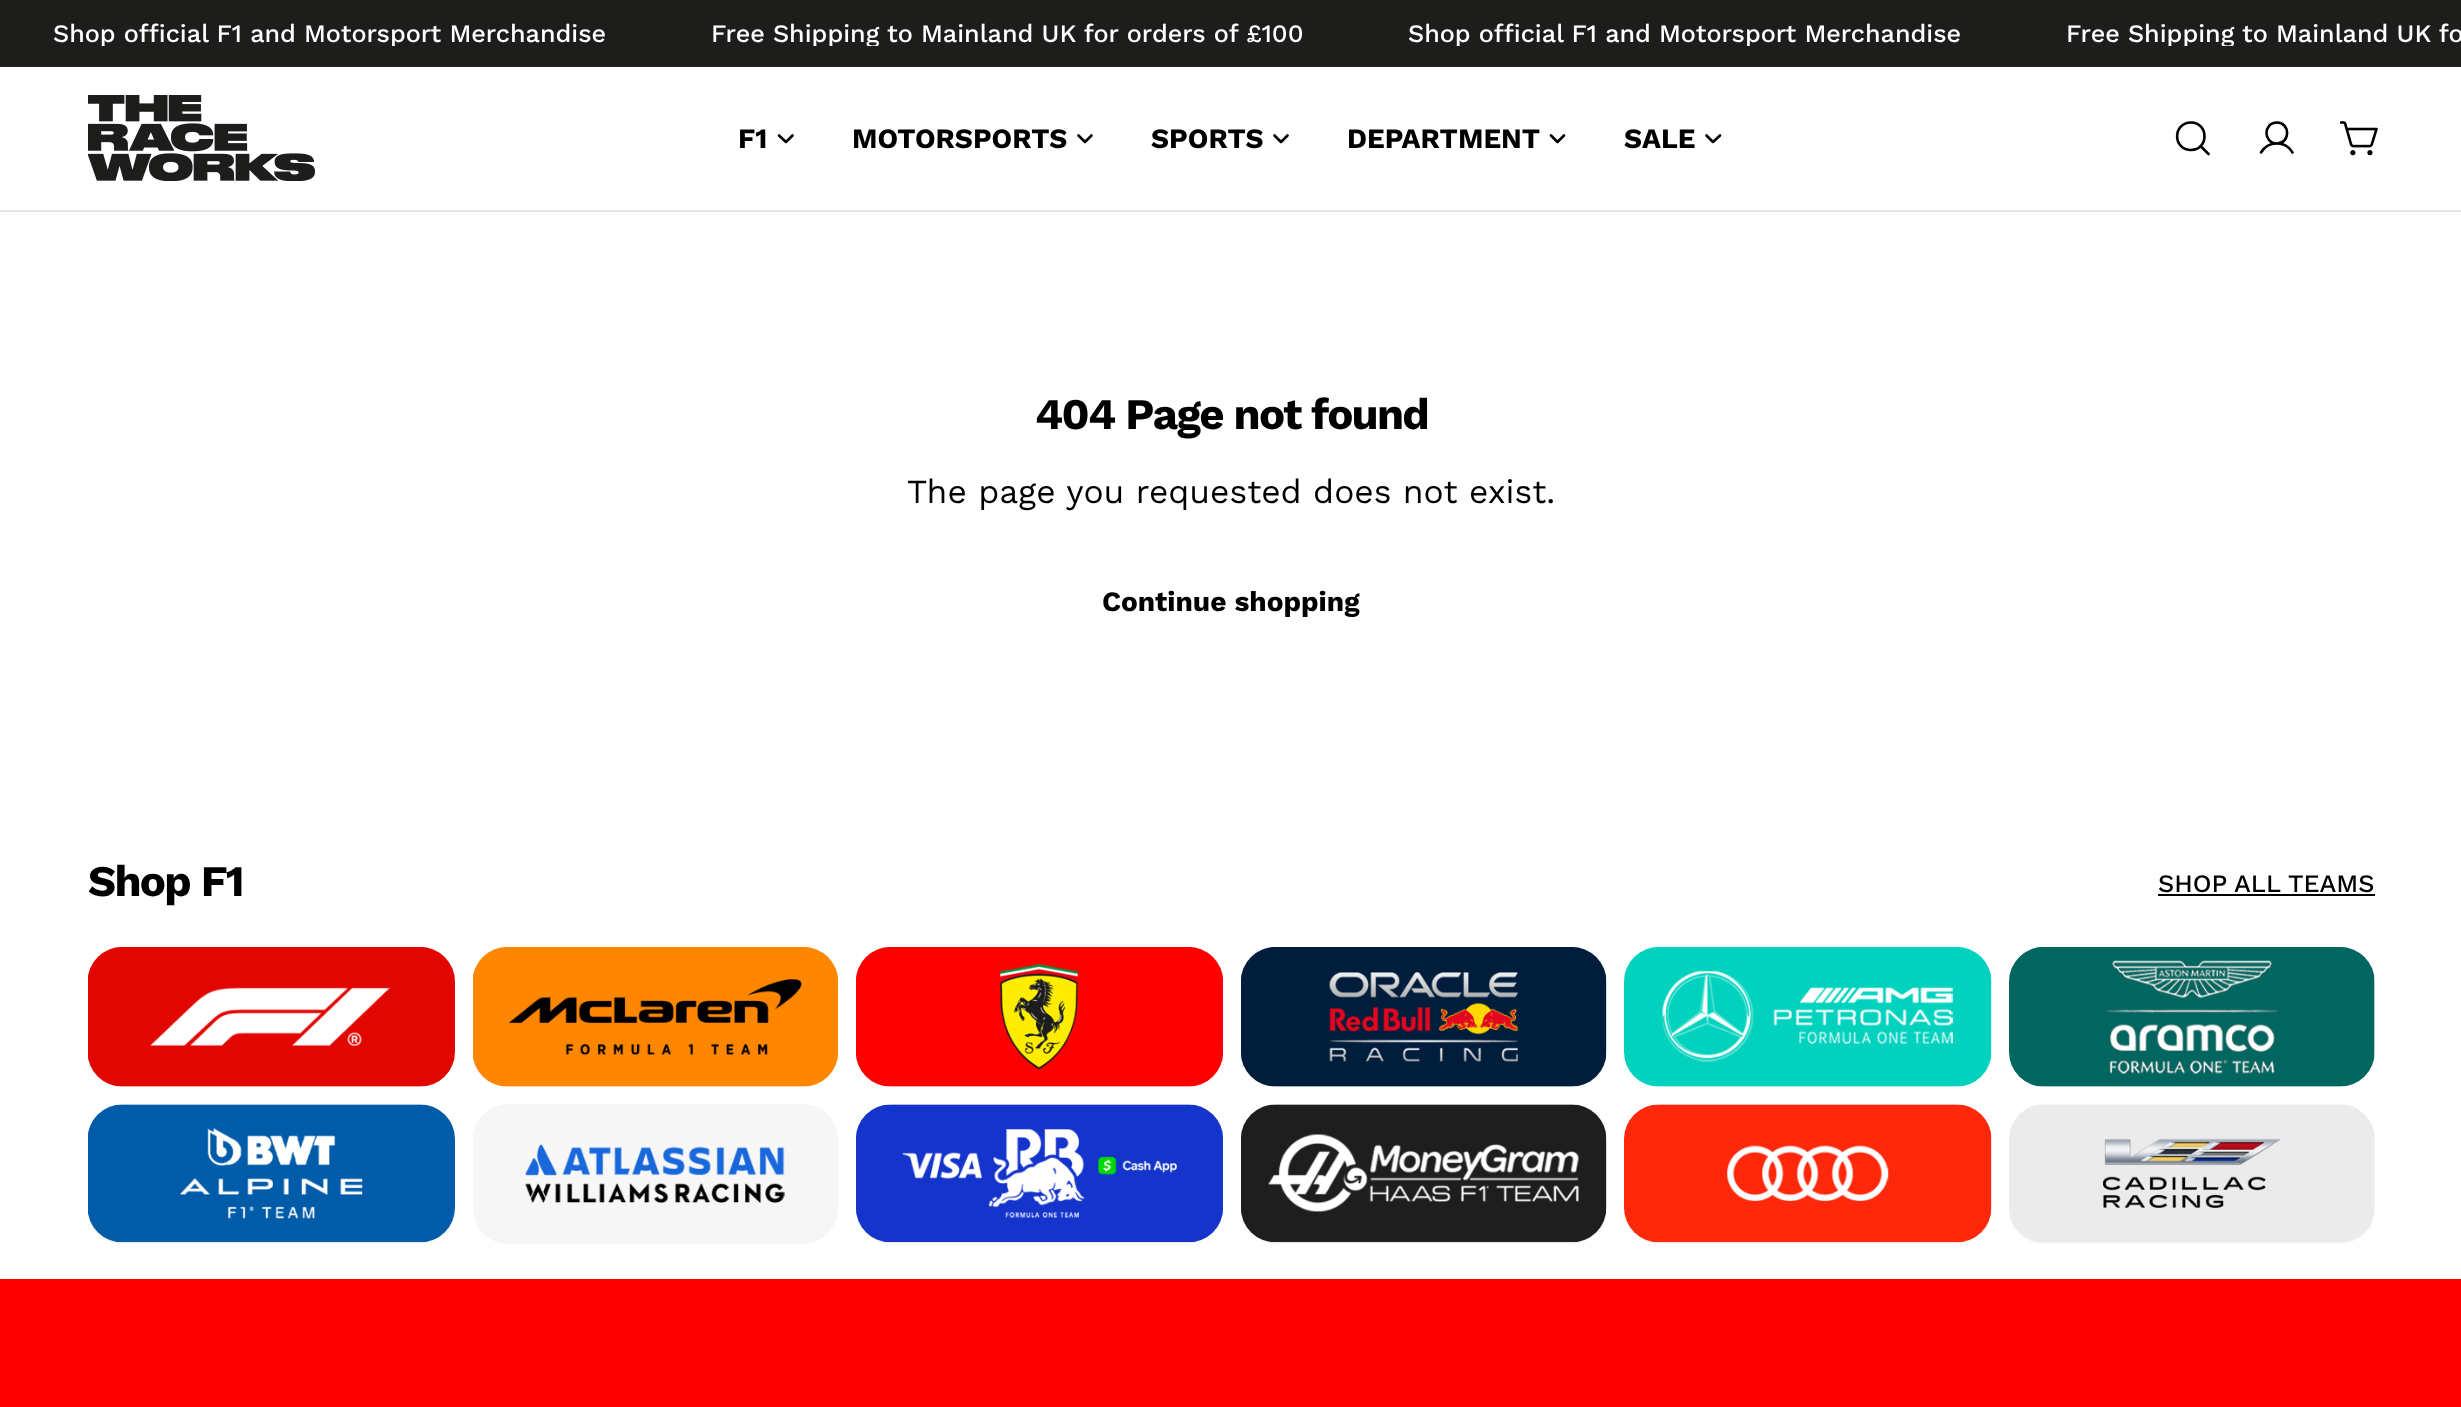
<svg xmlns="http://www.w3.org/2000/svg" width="2461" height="1407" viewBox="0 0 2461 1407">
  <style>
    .t1 { font: 500 25.2px Work Sans; fill: #fff; }
    .t2 { font: bold 28px Work Sans; fill: #000; }
    .t3 { font: bold 43.75px Work Sans; letter-spacing: -1.75px; fill: #000; }
    .t4 { font: 33.6px Work Sans; fill: #000; }
    .t5 { font: 500 25.2px Work Sans; fill: #000; }
  </style>
  <defs>
    <clipPath id="clip1"><rect x="0" y="21" width="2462" height="25"/></clipPath>
  </defs>
  <rect width="100%" height="100%" fill="#fff"/>
  <rect x="0" y="0" width="2461" height="67" fill="#1d1d1b"/>
  <g clip-path="url(#clip1)">
    <text x="53" y="42" class="t1">Shop official F1 and Motorsport Merchandise</text>
    <text x="711" y="42" class="t1">Free Shipping to Mainland UK for orders of £100</text>
    <text x="1408" y="42" class="t1">Shop official F1 and Motorsport Merchandise</text>
    <text x="2066" y="42" class="t1">Free Shipping to Mainland UK fo</text>
  </g>
  <rect x="0" y="210" width="2461" height="2" fill="#e6e6e6"/>
  <image x="88" y="95" width="227" height="86" href="images/1.png"/>
  <text x="738" y="148" class="t2">F1</text>
  <path d="M792.5 135.5L786 142L779 135.5" fill="none" stroke="#000" stroke-width="2.6" stroke-linecap="round" stroke-linejoin="round"/>
  <text x="852" y="148" class="t2">MOTORSPORTS</text>
  <path d="M1091.5 135.5L1085 142L1078.5 135.5" fill="none" stroke="#000" stroke-width="2.6" stroke-linecap="round" stroke-linejoin="round"/>
  <text x="1151" y="148" class="t2">SPORTS</text>
  <path d="M1287.5 135.5L1281 142L1274.5 135.5" fill="none" stroke="#000" stroke-width="2.6" stroke-linecap="round" stroke-linejoin="round"/>
  <text x="1347" y="148" class="t2">DEPARTMENT</text>
  <path d="M1564 135.5L1557.5 142L1551 135.5" fill="none" stroke="#000" stroke-width="2.6" stroke-linecap="round" stroke-linejoin="round"/>
  <text x="1624" y="148" class="t2">SALE</text>
  <path d="M1720 135.5L1713 142L1706.5 135.5" fill="none" stroke="#000" stroke-width="2.6" stroke-linecap="round" stroke-linejoin="round"/>
  <path d="M2191 150C2209 150 2209 122.5 2191 122.5C2172.5 122.5 2172.5 150 2191 150ZM2200.5 146L2208.5 154" fill="none" stroke="#000" stroke-width="2.6" stroke-linecap="round" stroke-linejoin="round"/>
  <path d="M2277 143.5C2290.5 143.5 2290.5 122.5 2277 122.5C2263 122.5 2263 143.5 2277 143.5ZM2261 152.5C2268 140.5 2285.5 140.5 2292.5 152.5" fill="none" stroke="#000" stroke-width="2.6" stroke-linecap="round" stroke-linejoin="round"/>
  <image x="2340" y="121" width="38" height="35" href="images/2.png"/>
  <text x="1035" y="429" class="t3">404 Page not found</text>
  <text x="907" y="503" class="t4">The page you requested does not exist.</text>
  <text x="1102" y="611" class="t2">Continue shopping</text>
  <text x="88" y="896" class="t3">Shop F1</text>
  <text x="2158" y="892" class="t5">SHOP ALL TEAMS</text>
  <rect x="2158" y="894" width="217" height="2" fill="#000"/>
  <rect x="88" y="947" width="367" height="140" rx="35" fill="#f6f6f6"/>
  <image x="88" y="947" width="367" height="140" href="images/3.png"/>
  <rect x="473" y="947" width="365" height="140" rx="35" fill="#f6f6f6"/>
  <image x="473" y="947" width="365" height="140" href="images/4.png"/>
  <rect x="856" y="947" width="367" height="140" rx="35" fill="#f6f6f6"/>
  <image x="856" y="947" width="367" height="140" href="images/5.png"/>
  <rect x="1241" y="947" width="366" height="140" rx="35" fill="#f6f6f6"/>
  <image x="1241" y="947" width="366" height="140" href="images/6.png"/>
  <rect x="1624" y="947" width="368" height="140" rx="35" fill="#f6f6f6"/>
  <image x="1624" y="947" width="368" height="140" href="images/7.png"/>
  <rect x="2009" y="947" width="366" height="140" rx="35" fill="#f6f6f6"/>
  <image x="2009" y="947" width="366" height="140" href="images/8.png"/>
  <rect x="88" y="1104" width="367" height="140" rx="35" fill="#f6f6f6"/>
  <image x="88" y="1104" width="367" height="139" href="images/9.png"/>
  <rect x="473" y="1104" width="365" height="140" rx="35" fill="#f6f6f6"/>
  <image x="473" y="1132" width="313" height="71" href="images/10.png"/>
  <rect x="856" y="1104" width="367" height="140" rx="35" fill="#f6f6f6"/>
  <image x="856" y="1104" width="367" height="139" href="images/11.png"/>
  <rect x="1241" y="1104" width="366" height="140" rx="35" fill="#f6f6f6"/>
  <image x="1241" y="1104" width="366" height="139" href="images/12.png"/>
  <rect x="1624" y="1104" width="368" height="140" rx="35" fill="#f6f6f6"/>
  <image x="1624" y="1104" width="368" height="139" href="images/13.png"/>
  <rect x="2009" y="1104" width="366" height="140" rx="35" fill="#f6f6f6"/>
  <image x="2009" y="1105" width="366" height="137" href="images/14.png"/>
  <rect x="0" y="1279" width="2461" height="128" fill="#f00"/>
</svg>
